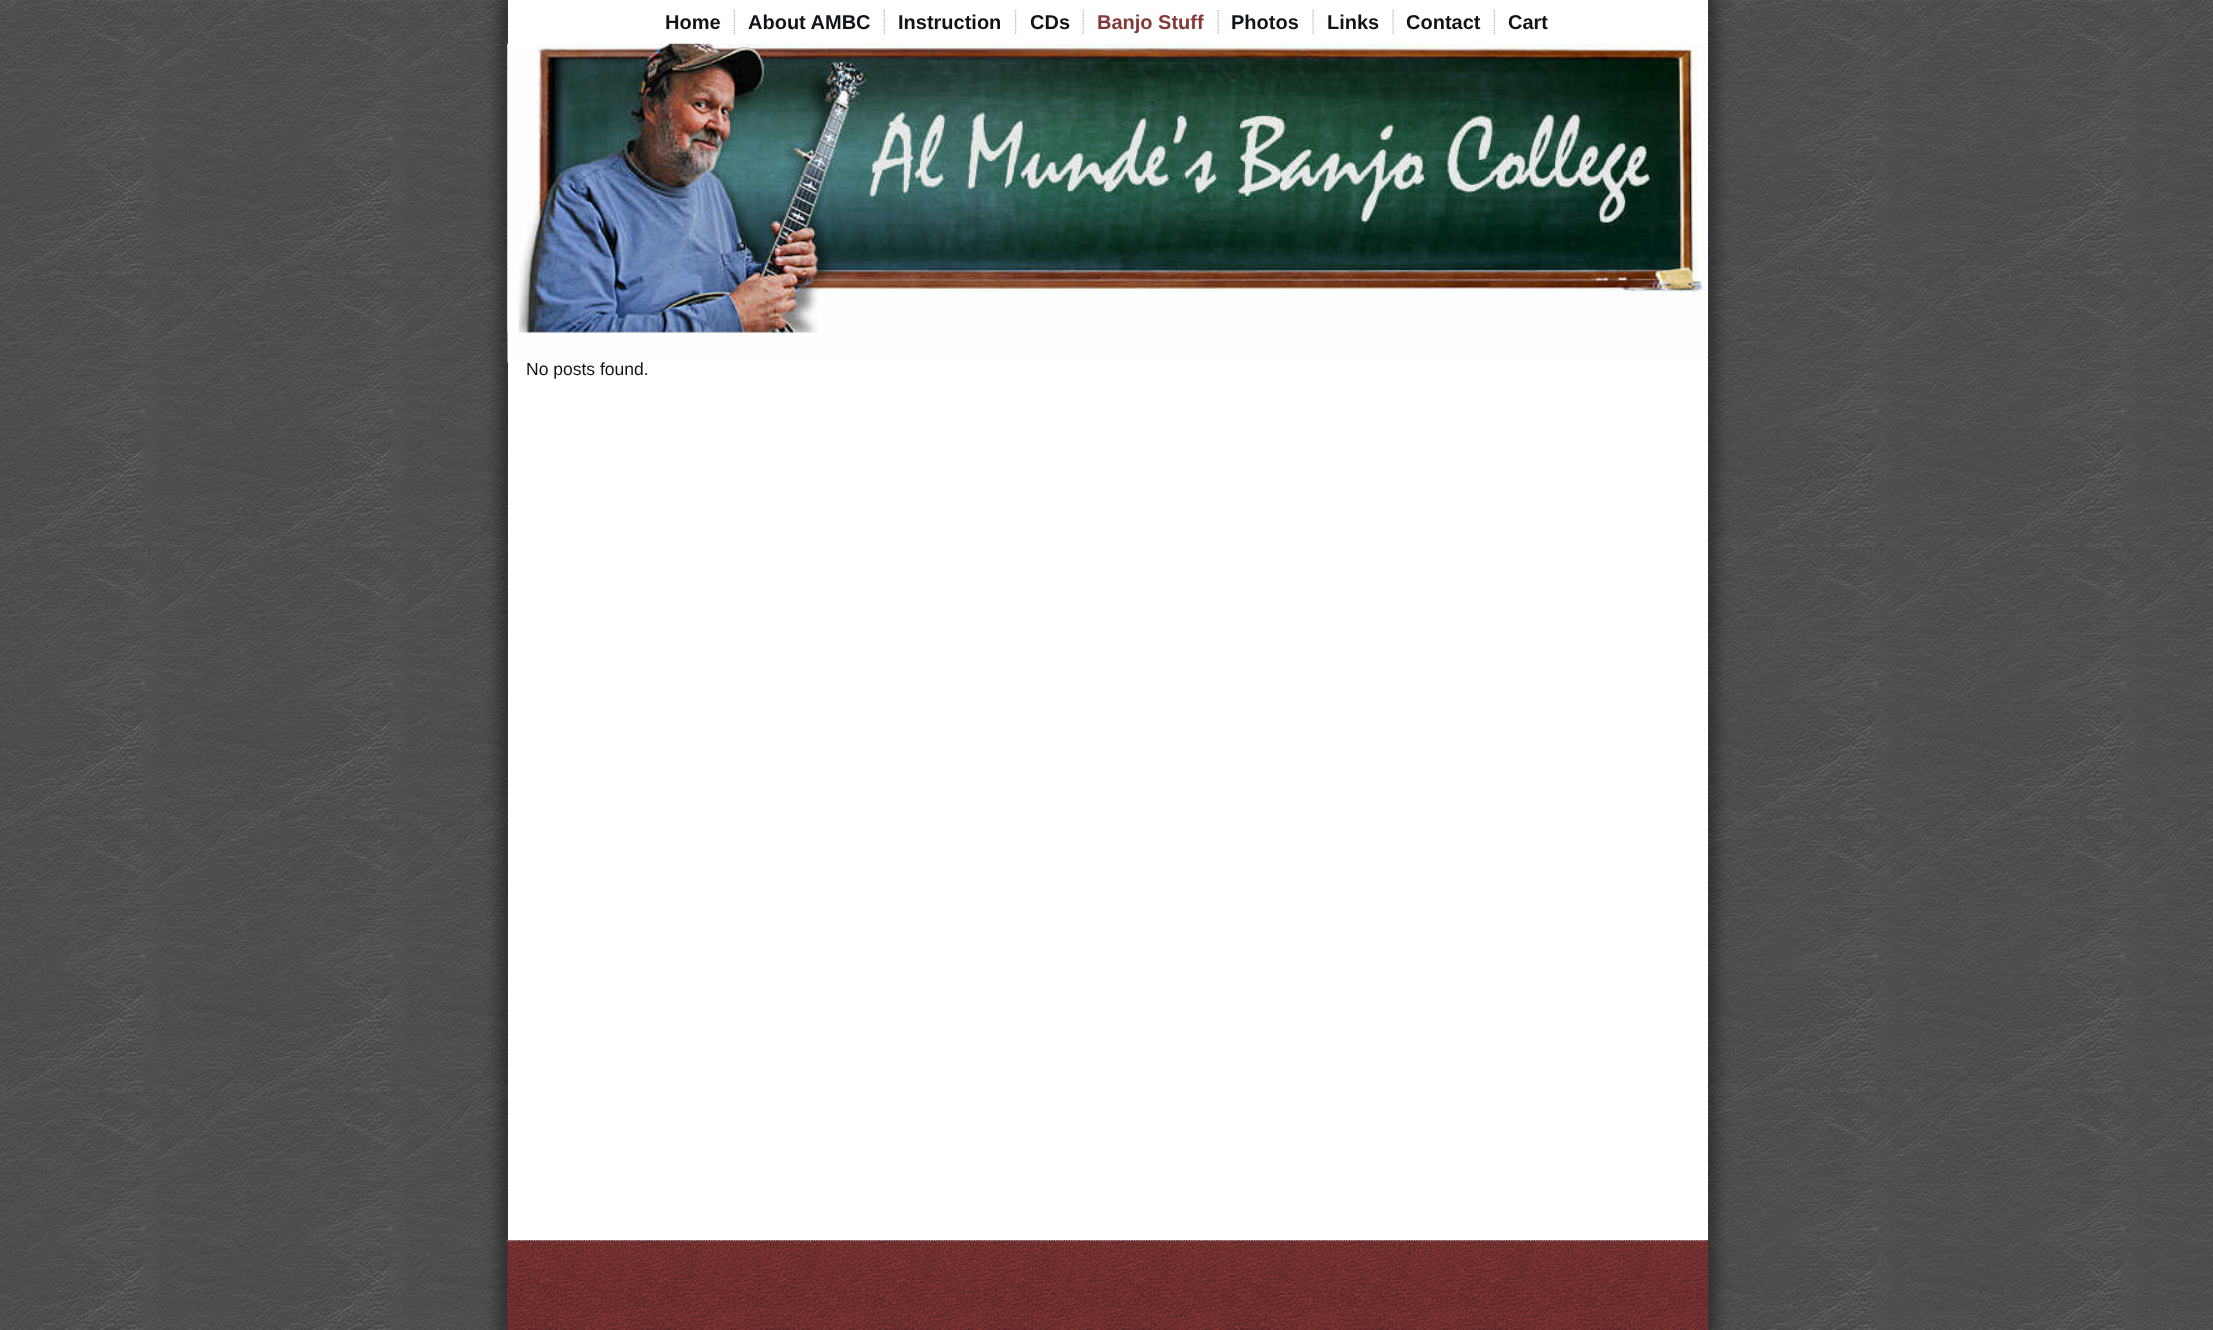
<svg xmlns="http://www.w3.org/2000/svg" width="2213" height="1330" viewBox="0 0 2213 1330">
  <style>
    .t1 { font: bold 20px Liberation Sans; fill: #0f1419; }
    .t2 { font: bold 20px Liberation Sans; fill: #853838; }
    .t3 { font: 17.5px Liberation Sans; fill: #0f1419; }
  </style>
  <rect width="100%" height="100%" fill="#5c5c5c"/>
  <image x="0" y="0" width="2213" height="1330" href="images/1.png"/>
  <rect x="499" y="-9" width="1217" height="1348" fill="#00000066" filter="blur(8px)"/>
  <rect x="508" y="0" width="1200" height="1240" fill="#fff"/>
  <text x="665" y="29" class="t1">Home</text>
  <image x="733" y="9" width="2" height="25" href="images/2.png"/>
  <text x="748" y="29" class="t1">About AMBC</text>
  <image x="883" y="9" width="2" height="25" href="images/2.png"/>
  <text x="898" y="29" class="t1">Instruction</text>
  <image x="1015" y="9" width="2" height="25" href="images/3.png"/>
  <text x="1030" y="29" class="t1">CDs</text>
  <image x="1082" y="9" width="2" height="25" href="images/4.png"/>
  <text x="1097" y="29" class="t2">Banjo Stuff</text>
  <image x="1217" y="9" width="2" height="25" href="images/4.png"/>
  <text x="1231" y="29" class="t1">Photos</text>
  <image x="1312" y="9" width="2" height="25" href="images/4.png"/>
  <text x="1327" y="29" class="t1">Links</text>
  <image x="1392" y="9" width="2" height="25" href="images/4.png"/>
  <text x="1406" y="29" class="t1">Contact</text>
  <image x="1493" y="9" width="2" height="25" href="images/2.png"/>
  <text x="1508" y="29" class="t1">Cart</text>
  <image x="507" y="43" width="1201" height="320" href="images/5.png"/>
  <text x="526" y="375" class="t3">No posts found.</text>
  <rect x="1707" y="1240" width="1" height="90" fill="#853838"/>
  <image x="507" y="1240" width="1201" height="90" href="images/6.png"/>
  <path d="M507.5 1240.5H1707.5" fill="none" stroke="#9cafc4" stroke-width="1.2" stroke-dasharray="1.25 1.25"/>
</svg>
